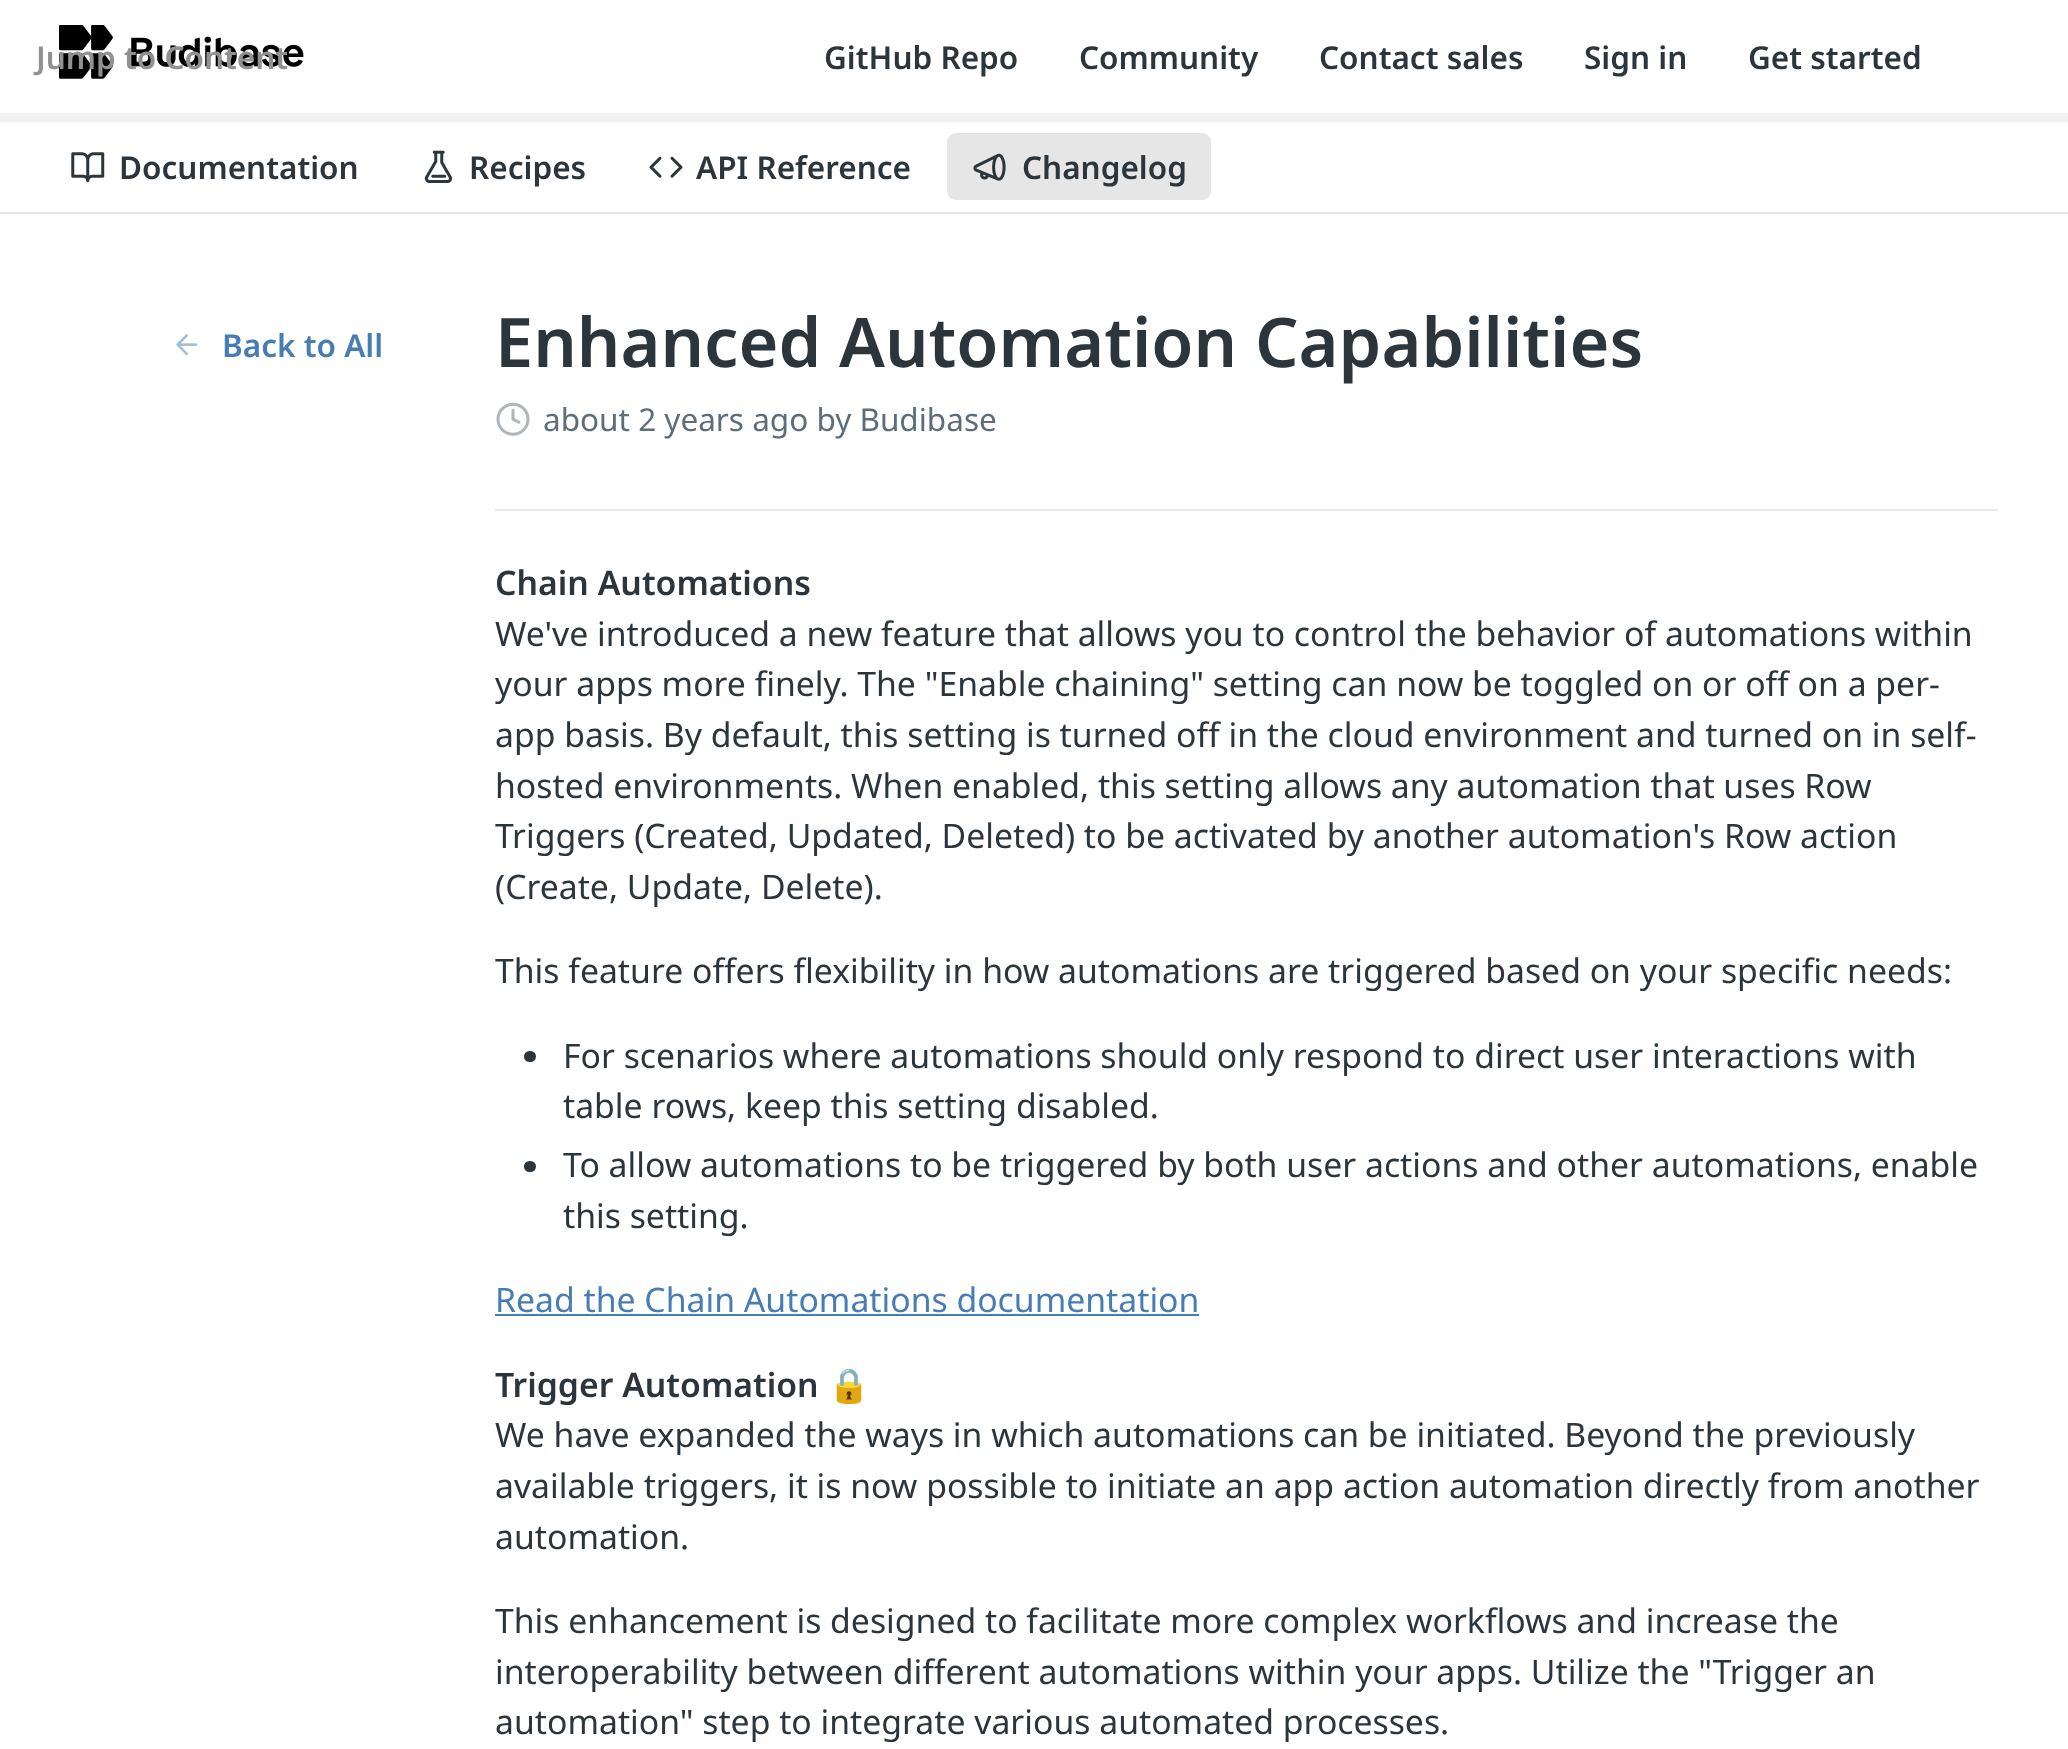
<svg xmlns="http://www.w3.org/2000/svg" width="2068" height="1749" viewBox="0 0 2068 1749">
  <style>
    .t1 { font: 600 31.5px Noto Sans; fill: #2b353b; }
    .t2 { font: 600 31.5px Noto Sans; fill: #919191; }
    .t3 { font: 600 31.5px Noto Sans; fill: #467db4; }
    .t4 { font: 600 68.4px Noto Sans; fill: #2b353b; }
    .t5 { font: 31.5px Noto Sans; fill: #5d6d79; }
    .t6 { font: 600 33.75px Noto Sans; fill: #2b353b; }
    .t7 { font: 33.75px Noto Sans; fill: #2b353b; }
    .t8 { font: 33.75px Noto Sans; fill: #467db4; }
    .t9 { font: bold 33.75px Noto Color Emoji; fill: #2b353b; }
  </style>
  <rect width="100%" height="100%" fill="#fff"/>
  <rect x="0" y="212" width="2068" height="2" fill="#e6e6e6"/>
  <rect x="0" y="113" width="2068" height="9" fill="#f2f2f2"/>
  <image x="59" y="25" width="245" height="54" href="images/1.png"/>
  <text x="824" y="69" class="t1">GitHub Repo</text>
  <text x="1079" y="69" class="t1">Community</text>
  <text x="1319" y="69" class="t1">Contact sales</text>
  <text x="1584" y="69" class="t1">Sign in</text>
  <text x="1748" y="69" class="t1">Get started</text>
  <text x="36" y="69" class="t2">Jump to Content</text>
  <image x="71" y="152" width="34" height="31" href="images/2.png"/>
  <text x="119" y="179" class="t1">Documentation</text>
  <image x="424" y="150" width="29" height="33" href="images/3.png"/>
  <text x="469" y="179" class="t1">Recipes</text>
  <image x="649" y="156" width="34" height="22" href="images/4.png"/>
  <text x="696" y="179" class="t1">API Reference</text>
  <rect x="947" y="133" width="264" height="67" rx="9" fill="#e6e6e6"/>
  <image x="973" y="153" width="33" height="28" href="images/5.png"/>
  <text x="1022" y="179" class="t1">Changelog</text>
  <image x="176" y="334" width="22" height="22" href="images/6.png"/>
  <text x="222" y="357" class="t3">Back to All</text>
  <rect x="495" y="509" width="1503" height="2" fill="#e5e9eb"/>
  <text x="495" y="367" class="t4">Enhanced Automation Capabilities</text>
  <image x="496" y="402" width="34" height="34" href="images/7.png"/>
  <text x="543" y="431" class="t5">about 2 years ago by Budibase</text>
  <text x="495" y="595" class="t6">Chain Automations</text>
  <text x="495" y="646" class="t7">We've introduced a new feature that allows you to control the behavior of automations within</text>
  <text x="495" y="696" class="t7">your apps more finely. The "Enable chaining" setting can now be toggled on or off on a per-</text>
  <text x="495" y="747" class="t7">app basis. By default, this setting is turned off in the cloud environment and turned on in self-</text>
  <text x="495" y="798" class="t7">hosted environments. When enabled, this setting allows any automation that uses Row</text>
  <text x="495" y="848" class="t7">Triggers (Created, Updated, Deleted) to be activated by another automation's Row action</text>
  <text x="495" y="899" class="t7">(Create, Update, Delete).</text>
  <text x="495" y="983" class="t7">This feature offers flexibility in how automations are triggered based on your specific needs:</text>
  <rect x="524" y="1051" width="12" height="11" rx="5.5" fill="#2b353b"/>
  <text x="563" y="1068" class="t7">For scenarios where automations should only respond to direct user interactions with</text>
  <text x="563" y="1118" class="t7">table rows, keep this setting disabled.</text>
  <rect x="524" y="1161" width="12" height="11" rx="5.5" fill="#2b353b"/>
  <text x="563" y="1177" class="t7">To allow automations to be triggered by both user actions and other automations, enable</text>
  <text x="563" y="1228" class="t7">this setting.</text>
  <text x="495" y="1312" class="t8">Read the Chain Automations documentation</text>
  <rect x="495" y="1314" width="704" height="2" fill="#467db4"/>
  <text x="495" y="1397" class="t6">Trigger Automation</text>
  <text x="828" y="1397" class="t9">🔒</text>
  <text x="495" y="1447" class="t7">We have expanded the ways in which automations can be initiated. Beyond the previously</text>
  <text x="495" y="1498" class="t7">available triggers, it is now possible to initiate an app action automation directly from another</text>
  <text x="495" y="1549" class="t7">automation.</text>
  <text x="495" y="1633" class="t7">This enhancement is designed to facilitate more complex workflows and increase the</text>
  <text x="495" y="1684" class="t7">interoperability between different automations within your apps. Utilize the "Trigger an</text>
  <text x="495" y="1734" class="t7">automation" step to integrate various automated processes.</text>
</svg>
